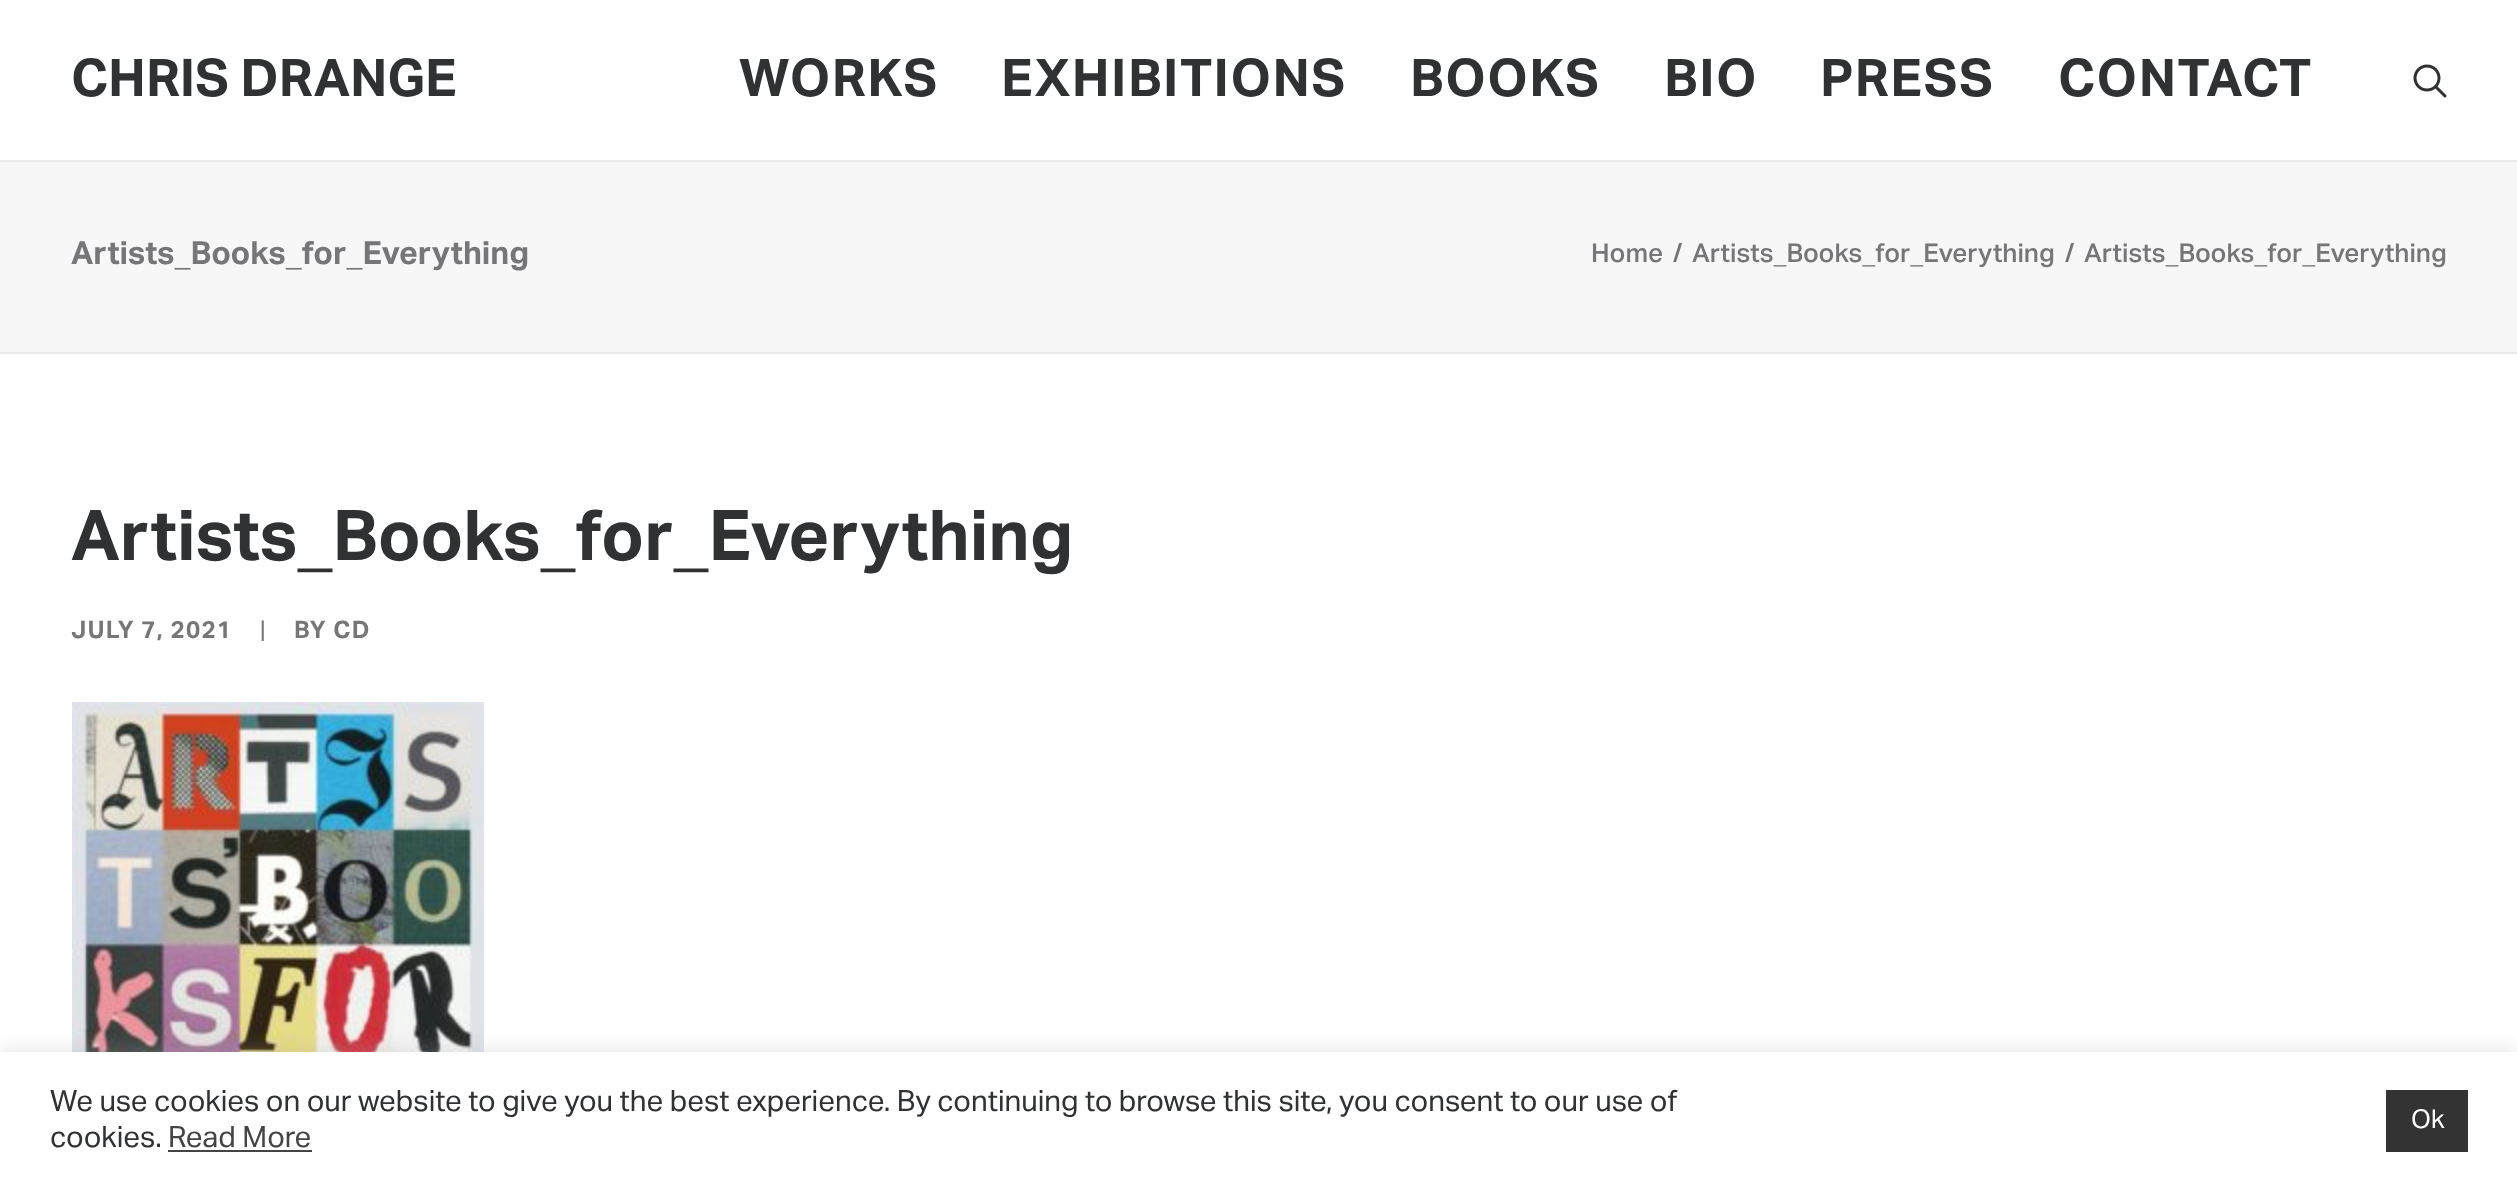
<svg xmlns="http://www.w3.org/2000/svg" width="2517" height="1190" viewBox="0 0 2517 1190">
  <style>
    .t1 { font: bold 52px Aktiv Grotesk; fill: #303133; }
    .t2 { font: bold 52px Aktiv Grotesk; letter-spacing: 1.5px; fill: #303133; }
    .t3 { font: bold 32px Aktiv Grotesk; fill: #767678; }
    .t4 { font: 500 26px Aktiv Grotesk; fill: #767678; }
    .t5 { font: bold 70px Aktiv Grotesk; fill: #303133; }
    .t6 { font: bold 24px Aktiv Grotesk; letter-spacing: 1.25px; fill: #767678; }
    .t7 { font: 24px Aktiv Grotesk; letter-spacing: 1.25px; fill: #767678; }
    .t8 { font: 29.33px Aktiv Grotesk; fill: #303133; }
    .t9 { font: 29.33px Aktiv Grotesk; fill: #444; }
    .t10 { font: 26px Aktiv Grotesk; fill: #fff; }
  </style>
  <rect width="100%" height="100%" fill="#fff"/>
  <text x="71" y="96" class="t1">CHRIS DRANGE</text>
  <text x="739" y="96" class="t2">WORKS</text>
  <text x="1001" y="96" class="t2">EXHIBITIONS</text>
  <text x="1410" y="96" class="t2">BOOKS</text>
  <text x="1664" y="96" class="t2">BIO</text>
  <text x="1820" y="96" class="t2">PRESS</text>
  <text x="2058" y="96" class="t2">CONTACT</text>
  <image x="2413" y="64" width="34" height="34" href="images/1.png"/>
  <rect x="0" y="162" width="2517" height="190" fill="#f7f7f7"/>
  <rect x="0" y="160" width="2517" height="2" fill="#eaeaea"/>
  <rect x="0" y="352" width="2517" height="2" fill="#eaeaea"/>
  <text x="71" y="264" class="t3">Artists_Books_for_Everything</text>
  <text x="1591" y="262" class="t4">Home</text>
  <text x="1673" y="262" class="t4">/</text>
  <text x="1692" y="262" class="t4">Artists_Books_for_Everything</text>
  <text x="2065" y="262" class="t4">/</text>
  <text x="2084" y="262" class="t4">Artists_Books_for_Everything</text>
  <text x="71" y="560" class="t5">Artists_Books_for_Everything</text>
  <text x="71" y="638" class="t6">JULY 7, 2021</text>
  <text x="260" y="638" class="t7">|</text>
  <text x="294" y="638" class="t6">BY CD</text>
  <image x="72" y="702" width="412" height="350" href="images/2.png"/>
  <rect x="0" y="1050" width="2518" height="138" fill="#acabab4d" filter="blur(10px)"/>
  <rect x="0" y="1052" width="2517" height="138" fill="#fff"/>
  <text x="50" y="1111" class="t8">We use cookies on our website to give you the best experience. By continuing to browse this site, you consent to our use of</text>
  <text x="50" y="1147" class="t8">cookies.</text>
  <text x="168" y="1147" class="t9">Read More</text>
  <rect x="168" y="1150" width="144" height="2" fill="#444"/>
  <rect x="2386" y="1090" width="82" height="62" fill="#333"/>
  <text x="2411" y="1128" class="t10">Ok</text>
</svg>
